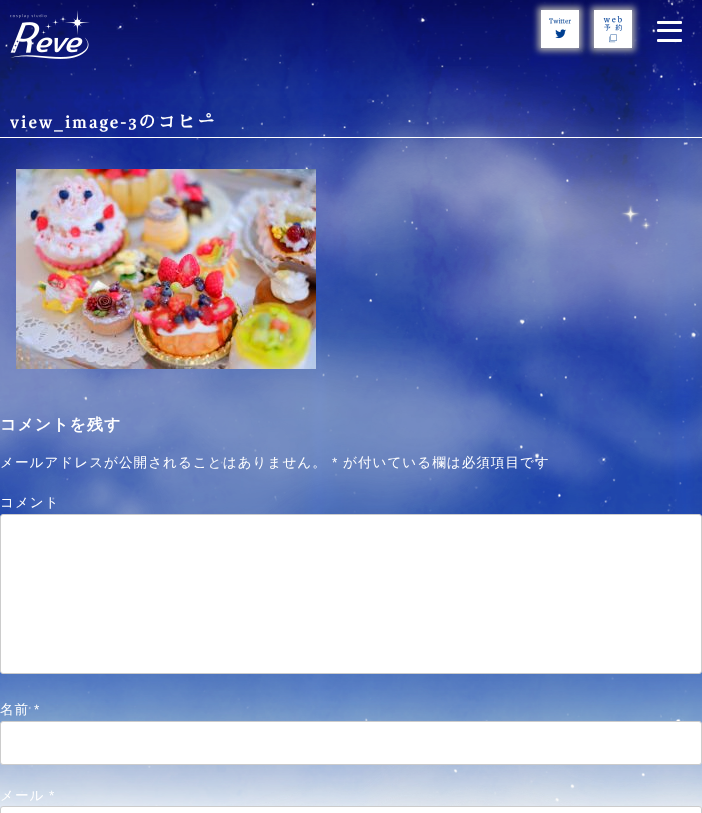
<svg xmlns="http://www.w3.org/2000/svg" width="702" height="813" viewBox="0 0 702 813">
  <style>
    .t1 { font: bold 17.75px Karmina; letter-spacing: 2px; fill: #fff; }
    .t2 { font: bold 17.75px Sawarabi Mincho; letter-spacing: 2px; fill: #fff; }
    .t3 { font: bold 16px WenQuanYi Zen Hei; letter-spacing: 1px; fill: #fff; }
    .t4 { font: 500 13.6px WenQuanYi Zen Hei; letter-spacing: 1px; fill: #fff; }
    .t5 { font: 13.6px Liberation Sans; letter-spacing: 1px; fill: #fff; }
  </style>
  <rect width="100%" height="100%" fill="#fff"/>
  <image x="0" y="0" width="702" height="809" href="images/1.png"/>
  <image x="0" y="0" width="702" height="806" href="images/2.png"/>
  <image x="0" y="66" width="702" height="743" href="images/3.png"/>
  <image x="10" y="10" width="80" height="49" href="images/4.png"/>
  <rect x="538" y="7" width="44" height="44" fill="#acacac" filter="blur(3px)"/>
  <rect x="541" y="10" width="38" height="38" fill="#fff"/>
  <image x="549" y="18" width="22" height="21" href="images/5.png"/>
  <rect x="591" y="7" width="44" height="44" fill="#acacac" filter="blur(3px)"/>
  <rect x="594" y="10" width="38" height="38" fill="#fff"/>
  <image x="603" y="16" width="19" height="27" href="images/6.png"/>
  <rect x="657" y="29" width="25" height="3" rx="1" fill="#fff"/>
  <rect x="657" y="21" width="25" height="3" rx="1" fill="#fff"/>
  <rect x="657" y="39" width="25" height="3" rx="1" fill="#fff"/>
  <rect x="0" y="137" width="702" height="1" fill="#fff"/>
  <text x="10" y="128" class="t1">view_image-3</text>
  <text x="138" y="128" class="t2">のコピー</text>
  <image x="16" y="169" width="300" height="200" href="images/7.png"/>
  <text x="0" y="430" class="t3">コメントを残す</text>
  <text x="0" y="467" class="t4">メールアドレスが公開されることはありません。</text>
  <text x="332" y="467" class="t5">*</text>
  <text x="343" y="467" class="t4">が付いている欄は必須項目です</text>
  <text x="0" y="507" class="t4">コメント</text>
  <rect x="0.5" y="514.5" width="701" height="159" rx="2.5" fill="#fff" stroke="#ccc"/>
  <text x="0" y="714" class="t4">名前</text>
  <text x="34" y="714" class="t5">*</text>
  <rect x="0.5" y="721.5" width="701" height="43" rx="2.5" fill="#fff" stroke="#ccc"/>
  <text x="0" y="800" class="t4">メール</text>
  <text x="49" y="800" class="t5">*</text>
  <rect x="0.5" y="806.5" width="701" height="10" rx="2.5" fill="#fff" stroke="#ccc"/>
</svg>
